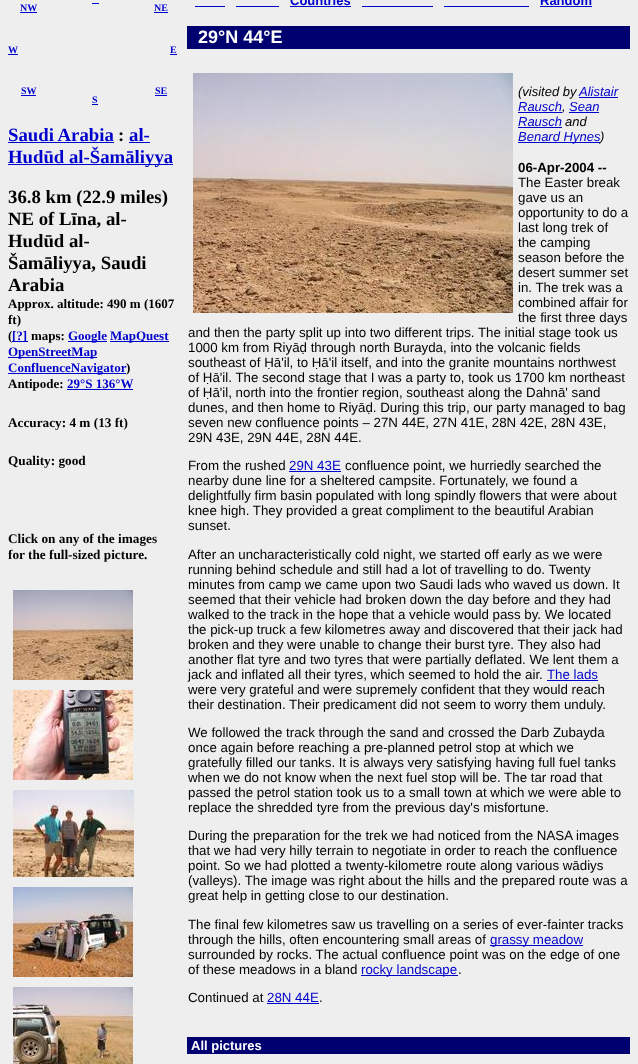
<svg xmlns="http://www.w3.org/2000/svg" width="638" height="1064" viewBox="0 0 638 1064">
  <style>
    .t1 { font: bold 10px Liberation Serif; fill: #00c; }
    .t2 { font: bold 18.75px Liberation Serif; fill: #00c; }
    .t3 { font: bold 18.75px Liberation Serif; fill: #000; }
    .t4 { font: bold 13px Liberation Serif; fill: #000; }
    .t5 { font: bold 13px Liberation Serif; fill: #00c; }
    .t6 { font: bold 13.25px Liberation Serif; fill: #000; }
    .t7 { font: bold 13px Liberation Sans; fill: #00c; }
    .t8 { font: bold 18px Liberation Sans; fill: #fff; }
    .t9 { font: italic 13px Liberation Sans; fill: #000; }
    .t10 { font: italic 13px Liberation Sans; fill: #00c; }
    .t11 { font: bold 13.3px Liberation Sans; fill: #000; }
    .t12 { font: 13.3px Liberation Sans; fill: #000; }
    .t13 { font: 13.3px Liberation Sans; fill: #00c; }
    .t14 { font: bold 13px Liberation Sans; fill: #fff; }
  </style>
  <rect width="100%" height="100%" fill="#eee"/>
  <text x="8" y="53" class="t1">W</text>
  <rect x="8" y="54" width="10" height="1" fill="#00c"/>
  <rect x="92" y="3" width="7" height="1" fill="#00c"/>
  <text x="20" y="11" class="t1">NW</text>
  <rect x="20" y="12" width="17" height="1" fill="#00c"/>
  <text x="154" y="11" class="t1">NE</text>
  <rect x="154" y="12" width="14" height="1" fill="#00c"/>
  <text x="21" y="94" class="t1">SW</text>
  <rect x="21" y="95" width="15" height="1" fill="#00c"/>
  <text x="155" y="94" class="t1">SE</text>
  <rect x="155" y="95" width="12" height="1" fill="#00c"/>
  <text x="92" y="103" class="t1">S</text>
  <rect x="92" y="104" width="6" height="1" fill="#00c"/>
  <text x="170" y="53" class="t1">E</text>
  <rect x="170" y="54" width="7" height="1" fill="#00c"/>
  <text x="8" y="141" class="t2">Saudi Arabia</text>
  <rect x="8" y="142" width="106" height="1" fill="#00c"/>
  <text x="118" y="141" class="t3">:</text>
  <text x="129" y="141" class="t2">al-</text>
  <rect x="129" y="142" width="21" height="1" fill="#00c"/>
  <rect x="8" y="164" width="165" height="1" fill="#00c"/>
  <text x="8" y="163" class="t2">Hudūd al-Šamāliyya</text>
  <text x="8" y="203" class="t3">36.8 km (22.9 miles)</text>
  <text x="8" y="225" class="t3">NE of Līna, al-</text>
  <text x="8" y="247" class="t3">Hudūd al-</text>
  <text x="8" y="269" class="t3">Šamāliyya, Saudi</text>
  <text x="8" y="291" class="t3">Arabia</text>
  <text x="8" y="308" class="t4">Approx. altitude: 490 m (1607</text>
  <text x="8" y="324" class="t4">ft)</text>
  <text x="8" y="340" class="t4">(</text>
  <rect x="12" y="341" width="16" height="1" fill="#00c"/>
  <text x="12" y="340" class="t5">[?]</text>
  <text x="31" y="340" class="t4">maps:</text>
  <rect x="68" y="341" width="39" height="1" fill="#00c"/>
  <text x="68" y="340" class="t5">Google</text>
  <rect x="110" y="341" width="59" height="1" fill="#00c"/>
  <text x="110" y="340" class="t5">MapQuest</text>
  <rect x="8" y="357" width="89" height="1" fill="#00c"/>
  <text x="8" y="356" class="t5">OpenStreetMap</text>
  <rect x="8" y="373" width="118" height="1" fill="#00c"/>
  <text x="8" y="372" class="t5">ConfluenceNavigator</text>
  <text x="126" y="372" class="t4">)</text>
  <text x="8" y="388" class="t4">Antipode:</text>
  <text x="67" y="388" class="t5">29°S 136°W</text>
  <rect x="67" y="389" width="66" height="1" fill="#00c"/>
  <text x="8" y="427" class="t6">Accuracy: 4 m (13 ft)</text>
  <text x="8" y="465" class="t6">Quality: good</text>
  <text x="8" y="543" class="t6">Click on any of the images</text>
  <text x="8" y="559" class="t6">for the full-sized picture.</text>
  <image x="13" y="590" width="120" height="90" href="images/1.png"/>
  <image x="13" y="690" width="120" height="90" href="images/2.png"/>
  <image x="13" y="790" width="121" height="87" href="images/3.png"/>
  <image x="13" y="887" width="120" height="90" href="images/4.png"/>
  <image x="13" y="987" width="120" height="77" href="images/5.png"/>
  <text x="290" y="5" class="t7">Countries</text>
  <rect x="195" y="6" width="30" height="1" fill="#00c"/>
  <rect x="236" y="6" width="43" height="1" fill="#00c"/>
  <rect x="290" y="6" width="61" height="1" fill="#00c"/>
  <rect x="362" y="6" width="71" height="1" fill="#00c"/>
  <text x="540" y="5" class="t7">Random</text>
  <rect x="444" y="6" width="85" height="1" fill="#00c"/>
  <rect x="540" y="6" width="52" height="1" fill="#00c"/>
  <rect x="187" y="26" width="443" height="23" fill="#000070"/>
  <text x="198" y="43" class="t8">29°N 44°E</text>
  <image x="193" y="73" width="320" height="240" href="images/6.png"/>
  <text x="518" y="96" class="t9">(visited by</text>
  <rect x="579" y="97" width="39" height="1" fill="#00c"/>
  <text x="579" y="96" class="t10">Alistair</text>
  <text x="518" y="111" class="t10">Rausch</text>
  <text x="562" y="111" class="t9">,</text>
  <rect x="518" y="112" width="44" height="1" fill="#00c"/>
  <rect x="569" y="112" width="30" height="1" fill="#00c"/>
  <text x="569" y="111" class="t10">Sean</text>
  <text x="518" y="126" class="t10">Rausch</text>
  <rect x="518" y="127" width="44" height="1" fill="#00c"/>
  <text x="565" y="126" class="t9">and</text>
  <rect x="518" y="142" width="82" height="1" fill="#00c"/>
  <text x="518" y="141" class="t10">Benard Hynes</text>
  <text x="600" y="141" class="t9">)</text>
  <text x="518" y="172" class="t11">06-Apr-2004 --</text>
  <text x="518" y="187" class="t12">The Easter break</text>
  <text x="518" y="202" class="t12">gave us an</text>
  <text x="518" y="217" class="t12">opportunity to do a</text>
  <text x="518" y="232" class="t12">last long trek of</text>
  <text x="518" y="247" class="t12">the camping</text>
  <text x="518" y="262" class="t12">season before the</text>
  <text x="518" y="277" class="t12">desert summer set</text>
  <text x="518" y="292" class="t12">in. The trek was a</text>
  <text x="518" y="307" class="t12">combined affair for</text>
  <text x="518" y="322" class="t12">the first three days</text>
  <text x="188" y="337" class="t12">and then the party split up into two different trips. The initial stage took us</text>
  <text x="188" y="352" class="t12">1000 km from Riyāḍ through north Burayda, into the volcanic fields</text>
  <text x="188" y="367" class="t12">southeast of Ḥā'il, to Ḥā'il itself, and into the granite mountains northwest</text>
  <text x="188" y="382" class="t12">of Ḥā'il. The second stage that I was a party to, took us 1700 km northeast</text>
  <text x="188" y="397" class="t12">of Ḥā'il, north into the frontier region, southeast along the Dahnā' sand</text>
  <text x="188" y="412" class="t12">dunes, and then home to Riyāḍ. During this trip, our party managed to bag</text>
  <text x="188" y="427" class="t12">seven new confluence points – 27N 44E, 27N 41E, 28N 42E, 28N 43E,</text>
  <text x="188" y="442" class="t12">29N 43E, 29N 44E, 28N 44E.</text>
  <text x="188" y="470" class="t12">From the rushed</text>
  <text x="289" y="470" class="t13">29N 43E</text>
  <rect x="289" y="471" width="52" height="1" fill="#00c"/>
  <text x="345" y="470" class="t12">confluence point, we hurriedly searched the</text>
  <text x="188" y="485" class="t12">nearby dune line for a sheltered campsite. Fortunately, we found a</text>
  <text x="188" y="500" class="t12">delightfully firm basin populated with long spindly flowers that were about</text>
  <text x="188" y="515" class="t12">knee high. They provided a great compliment to the beautiful Arabian</text>
  <text x="188" y="530" class="t12">sunset.</text>
  <text x="188" y="559" class="t12">After an uncharacteristically cold night, we started off early as we were</text>
  <text x="188" y="574" class="t12">running behind schedule and still had a lot of travelling to do. Twenty</text>
  <text x="188" y="589" class="t12">minutes from camp we came upon two Saudi lads who waved us down. It</text>
  <text x="188" y="604" class="t12">seemed that their vehicle had broken down the day before and they had</text>
  <text x="188" y="619" class="t12">walked to the track in the hope that a vehicle would pass by. We located</text>
  <text x="188" y="634" class="t12">the pick-up truck a few kilometres away and discovered that their jack had</text>
  <text x="188" y="649" class="t12">broken and they were unable to change their burst tyre. They also had</text>
  <text x="188" y="664" class="t12">another flat tyre and two tyres that were partially deflated. We lent them a</text>
  <text x="188" y="679" class="t12">jack and inflated all their tyres, which seemed to hold the air.</text>
  <text x="547" y="679" class="t13">The lads</text>
  <rect x="547" y="680" width="51" height="1" fill="#00c"/>
  <text x="188" y="694" class="t12">were very grateful and were supremely confident that they would reach</text>
  <text x="188" y="709" class="t12">their destination. Their predicament did not seem to worry them unduly.</text>
  <text x="188" y="737" class="t12">We followed the track through the sand and crossed the Darb Zubayda</text>
  <text x="188" y="752" class="t12">once again before reaching a pre-planned petrol stop at which we</text>
  <text x="188" y="767" class="t12">gratefully filled our tanks. It is always very satisfying having full fuel tanks</text>
  <text x="188" y="782" class="t12">when we do not know when the next fuel stop will be. The tar road that</text>
  <text x="188" y="797" class="t12">passed the petrol station took us to a small town at which we were able to</text>
  <text x="188" y="812" class="t12">replace the shredded tyre from the previous day's misfortune.</text>
  <text x="188" y="840" class="t12">During the preparation for the trek we had noticed from the NASA images</text>
  <text x="188" y="855" class="t12">that we had very hilly terrain to negotiate in order to reach the confluence</text>
  <text x="188" y="870" class="t12">point. So we had plotted a twenty-kilometre route along various wādiys</text>
  <text x="188" y="885" class="t12">(valleys). The image was right about the hills and the prepared route was a</text>
  <text x="188" y="900" class="t12">great help in getting close to our destination.</text>
  <text x="188" y="929" class="t12">The final few kilometres saw us travelling on a series of ever-fainter tracks</text>
  <text x="188" y="944" class="t12">through the hills, often encountering small areas of</text>
  <rect x="490" y="945" width="93" height="1" fill="#00c"/>
  <text x="490" y="944" class="t13">grassy meadow</text>
  <text x="188" y="959" class="t12">surrounded by rocks. The actual confluence point was on the edge of one</text>
  <text x="188" y="974" class="t12">of these meadows in a bland</text>
  <rect x="361" y="975" width="97" height="1" fill="#00c"/>
  <text x="361" y="974" class="t13">rocky landscape</text>
  <text x="458" y="974" class="t12">.</text>
  <text x="188" y="1002" class="t12">Continued at</text>
  <text x="267" y="1002" class="t13">28N 44E</text>
  <rect x="267" y="1003" width="52" height="1" fill="#00c"/>
  <text x="319" y="1002" class="t12">.</text>
  <rect x="187" y="1037" width="443" height="17" fill="#000070"/>
  <text x="191" y="1050" class="t14">All pictures</text>
</svg>
